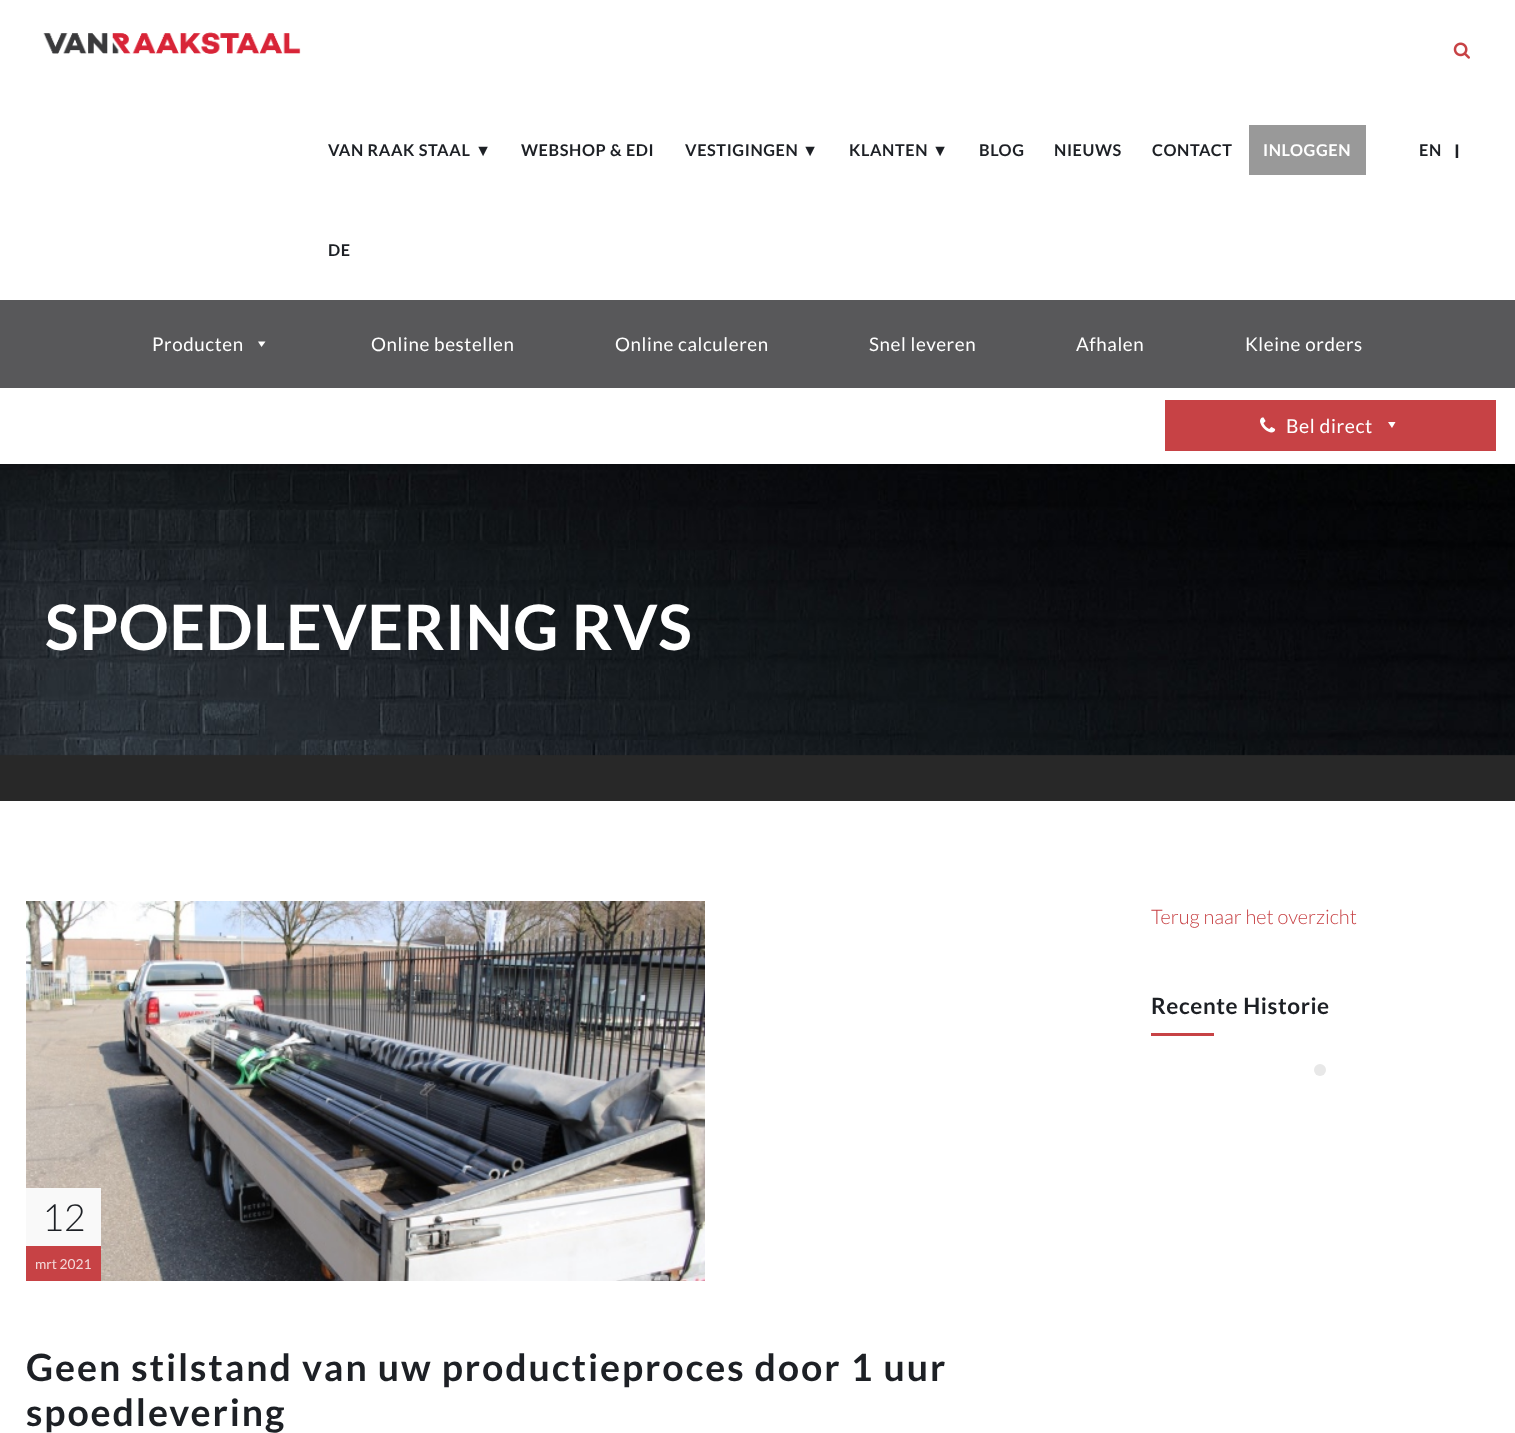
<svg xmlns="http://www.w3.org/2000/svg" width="1515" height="1433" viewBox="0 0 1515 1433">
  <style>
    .t1 { font: bold 16.25px Lato; letter-spacing: 0.6px; fill: #1d2025; }
    .t2 { font: bold 16.25px Liberation Sans; letter-spacing: 0.6px; fill: #1d2025; }
    .t3 { font: bold 16.25px Lato; letter-spacing: 0.6px; fill: #fff; }
    .t4 { font: bold 18.75px Lato; letter-spacing: 0.6px; fill: #1d2025; }
    .t5 { font: 18.75px Lato; letter-spacing: 0.6px; fill: #fff; }
    .t6 { font: 19.25px Lato; letter-spacing: 0.6px; fill: #fff; }
    .t7 { font: bold 62.5px Lato; letter-spacing: 0.6px; fill: #fff; }
    .t8 { font: 300 20px Lato; fill: #c74245; }
    .t9 { font: bold 22.5px Lato; letter-spacing: 0.6px; fill: #1d2025; }
    .t10 { font: 300 37.5px Lato; fill: #1d2025; }
    .t11 { font: 13.75px Lato; fill: #f4d9da; }
    .t12 { font: bold 37.5px Lato; letter-spacing: 1.9px; fill: #1d2025; }
  </style>
  <rect width="100%" height="100%" fill="#fff"/>
  <image x="43" y="32" width="258" height="22" href="images/1.png"/>
  <image x="1453" y="42" width="17" height="17" href="images/2.png"/>
  <text x="328" y="156" class="t1">VAN RAAK STAAL</text>
  <text x="475" y="156" class="t2">▼</text>
  <text x="521" y="156" class="t1">WEBSHOP &amp; EDI</text>
  <text x="685" y="156" class="t1">VESTIGINGEN</text>
  <text x="802" y="156" class="t2">▼</text>
  <text x="849" y="156" class="t1">KLANTEN</text>
  <text x="932" y="156" class="t2">▼</text>
  <text x="979" y="156" class="t1">BLOG</text>
  <text x="1054" y="156" class="t1">NIEUWS</text>
  <text x="1152" y="156" class="t1">CONTACT</text>
  <rect x="1249" y="125" width="117" height="50" fill="#999"/>
  <text x="1263" y="156" class="t3">INLOGGEN</text>
  <text x="1419" y="156" class="t1">EN</text>
  <text x="1454" y="158" class="t4">I</text>
  <text x="328" y="256" class="t1">DE</text>
  <rect x="0" y="300" width="1515" height="88" fill="#58585a"/>
  <text x="152" y="351" class="t5">Producten</text>
  <path d="M265.5 341.5L261.5 347L258 341.5Z" fill="#fff"/>
  <text x="371" y="351" class="t5">Online bestellen</text>
  <text x="615" y="351" class="t5">Online calculeren</text>
  <text x="869" y="351" class="t5">Snel leveren</text>
  <text x="1076" y="351" class="t5">Afhalen</text>
  <text x="1245" y="351" class="t5">Kleine orders</text>
  <rect x="1165" y="400" width="331" height="51" fill="#c74245"/>
  <image x="1260" y="417" width="16" height="16" href="images/3.png"/>
  <text x="1286" y="433" class="t6">Bel direct</text>
  <path d="M1395.5 422L1392 428L1388 422Z" fill="#fff"/>
  <rect x="0" y="754" width="1515" height="47" fill="#282828"/>
  <image x="0" y="464" width="1515" height="292" href="images/4.png"/>
  <text x="45" y="650" class="t7">SPOEDLEVERING RVS</text>
  <text x="1151" y="924" class="t8">Terug naar het overzicht</text>
  <text x="1151" y="1014" class="t9">Recente Historie</text>
  <rect x="1151" y="1033" width="63" height="3" fill="#c74245"/>
  <circle cx="1320" cy="1070" r="6" fill="#e8e8e8"/>
  <image x="26" y="901" width="679" height="380" href="images/5.png"/>
  <rect x="26" y="1188" width="75" height="58" fill="#f9f9f9"/>
  <text x="42" y="1231" class="t10">12</text>
  <rect x="26" y="1246" width="75" height="35" fill="#c74245"/>
  <text x="35" y="1269" class="t11">mrt 2021</text>
  <text x="26" y="1381" class="t12">Geen stilstand van uw productieproces door 1 uur</text>
  <text x="26" y="1426" class="t12">spoedlevering</text>
</svg>
